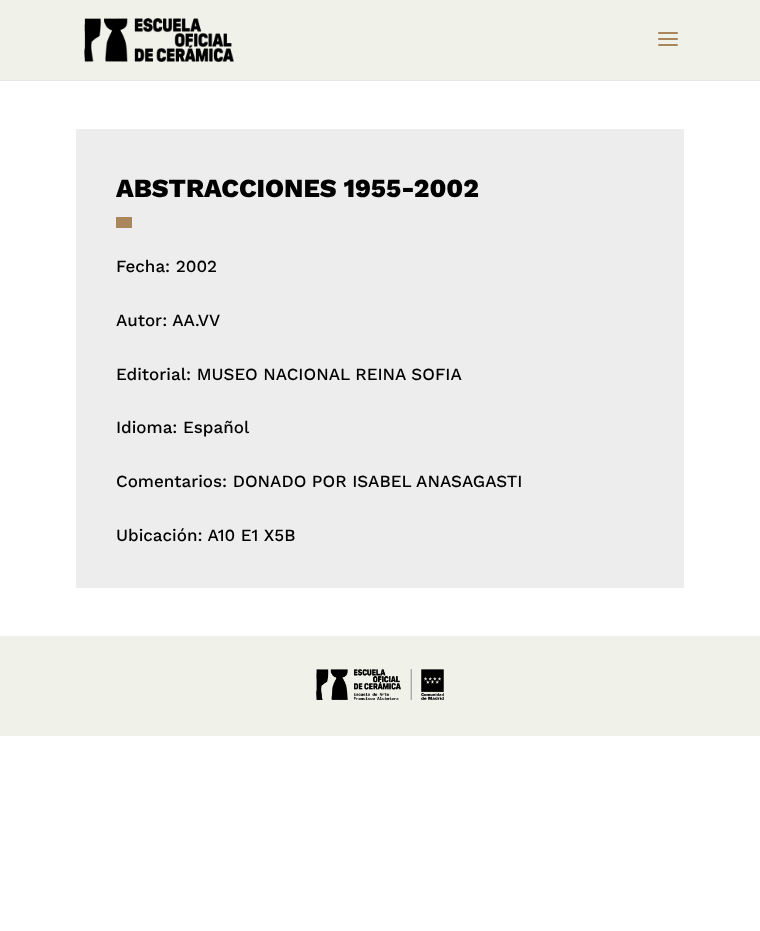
<svg xmlns="http://www.w3.org/2000/svg" width="760" height="931" viewBox="0 0 760 931">
  <style>
    .t1 { font: 800 26px Work Sans; fill: #000; }
    .t2 { font: 500 17px Work Sans; fill: #000; }
  </style>
  <rect width="100%" height="100%" fill="#fff"/>
  <rect x="0" y="80" width="760" height="1" fill="#e6e6e6"/>
  <rect x="0" y="0" width="760" height="80" fill="#f0f1e9"/>
  <image x="84" y="18" width="150" height="44" href="images/1.png"/>
  <image x="658" y="32" width="20" height="14" href="images/2.png"/>
  <rect x="76" y="129" width="608" height="459" fill="#ededed"/>
  <text x="116" y="197" class="t1">ABSTRACCIONES 1955-2002</text>
  <rect x="116" y="217" width="16" height="11" fill="#a9865c"/>
  <text x="116" y="272" class="t2">Fecha: 2002</text>
  <text x="116" y="326" class="t2">Autor: AA.VV</text>
  <text x="116" y="380" class="t2">Editorial: MUSEO NACIONAL REINA SOFIA</text>
  <text x="116" y="433" class="t2">Idioma: Español</text>
  <text x="116" y="487" class="t2">Comentarios: DONADO POR ISABEL ANASAGASTI</text>
  <text x="116" y="541" class="t2">Ubicación: A10 E1 X5B</text>
  <rect x="0" y="636" width="760" height="100" fill="#f0f1e9"/>
  <image x="316" y="669" width="128" height="31" href="images/3.png"/>
</svg>
